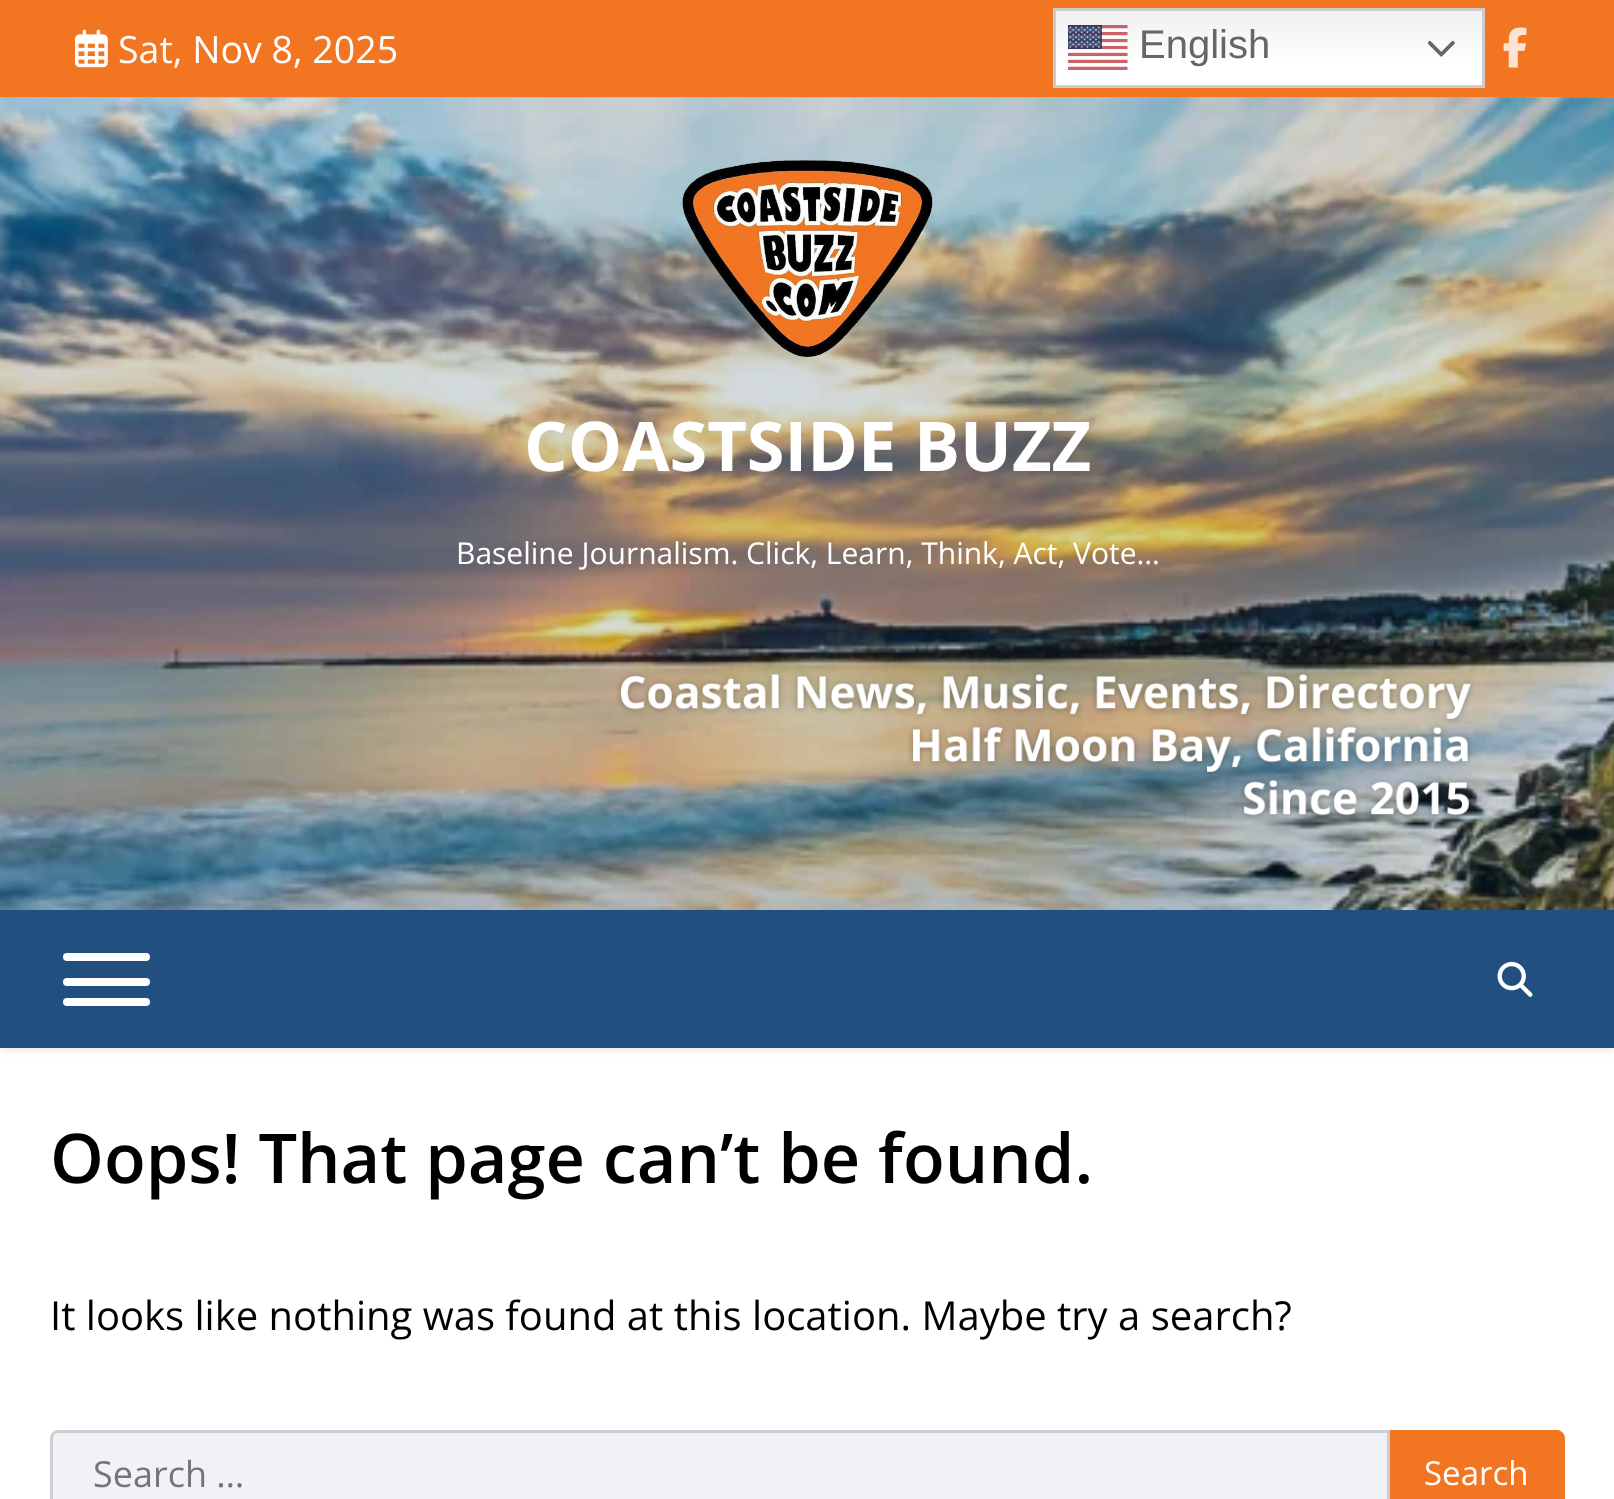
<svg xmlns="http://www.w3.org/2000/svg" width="1614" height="1499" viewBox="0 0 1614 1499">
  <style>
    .t1 { font: 40px Liberation Sans; fill: #666; }
    .t2 { font: 37.5px Open Sans; fill: #fff; }
    .t3 { font: bold 68.5px Open Sans; fill: #fff; }
    .t4 { font: 30px Open Sans; fill: #fff; }
    .t5 { font: 600 68.5px Open Sans; fill: #000; }
    .t6 { font: 40px Open Sans; fill: #000; }
    .t7 { font: 36px Open Sans; fill: #757575; }
    .t8 { font: 33px Open Sans; fill: #fff; }
  </style>
  <defs>
    <linearGradient id="g1" gradientUnits="userSpaceOnUse" x1="1269" y1="7.5" x2="1269" y2="88"><stop offset="0" stop-color="#efefef"/><stop offset="0.7" stop-color="#fff"/></linearGradient>
  </defs>
  <rect width="100%" height="100%" fill="#fff"/>
  <rect x="0" y="3" width="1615" height="1047" fill="#0000001a" filter="blur(4px)"/>
  <rect x="0" y="0" width="1614" height="98" fill="#f27522"/>
  <rect x="1056" y="11" width="426" height="74" fill="url(#g1)"/>
  <rect x="1054.5" y="9.5" width="429" height="77" fill="none" stroke="#ccc" stroke-width="3"/>
  <image x="1068" y="25" width="60" height="45" href="images/1.png"/>
  <text x="1139" y="58" class="t1">English</text>
  <image x="1428" y="40" width="27" height="17" href="images/2.png"/>
  <image x="75" y="29" width="33" height="39" href="images/3.png"/>
  <text x="118" y="63" class="t2">Sat, Nov 8, 2025</text>
  <image x="1503" y="27" width="24" height="41" href="images/4.png"/>
  <image x="0" y="97" width="1614" height="813" href="images/5.png"/>
  <image x="682" y="160" width="251" height="197" href="images/6.png"/>
  <text x="524" y="471" class="t3">COASTSIDE BUZZ</text>
  <text x="456" y="564" class="t4">Baseline Journalism. Click, Learn, Think, Act, Vote…</text>
  <image x="616" y="671" width="858" height="149" href="images/7.png"/>
  <rect x="0" y="910" width="1614" height="138" fill="#215080"/>
  <rect x="63" y="953" width="87" height="8" rx="4" fill="#fff"/>
  <rect x="63" y="978" width="87" height="8" rx="4" fill="#fff"/>
  <rect x="63" y="998" width="87" height="8" rx="4" fill="#fff"/>
  <image x="1497" y="961" width="36" height="36" href="images/8.png"/>
  <text x="50" y="1183" class="t5">Oops! That page can’t be found.</text>
  <text x="50" y="1330" class="t6">It looks like nothing was found at this location. Maybe try a search?</text>
  <path d="M58 1430H1390V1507H58C53.5 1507 50 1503.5 50 1499V1438C50 1433.5 53.5 1430 58 1430Z" fill="#f0f2f7"/>
  <path d="M58 1431.5H1388.5V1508.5H58C54.5 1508.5 51.5 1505.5 51.5 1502V1438C51.5 1434.5 54.5 1431.5 58 1431.5Z" fill="none" stroke="#00000026" stroke-width="3"/>
  <text x="93" y="1487" class="t7">Search …</text>
  <path d="M1391.5 1431.5H1557C1560.5 1431.5 1563.5 1434.5 1563.5 1438V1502C1563.5 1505.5 1560.5 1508.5 1557 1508.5H1391.5Z" fill="#f27522" stroke="#f27522" stroke-width="3"/>
  <text x="1424" y="1485" class="t8">Search</text>
</svg>
